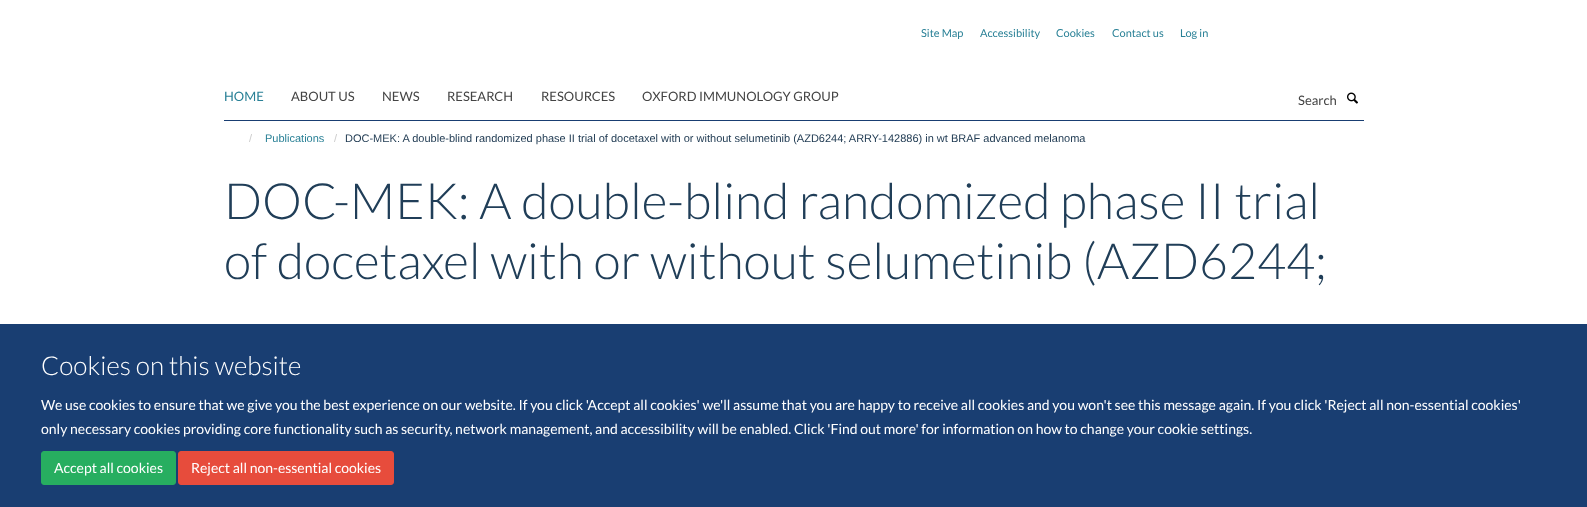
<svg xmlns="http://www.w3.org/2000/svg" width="1587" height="507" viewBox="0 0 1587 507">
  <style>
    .t1 { font: 11px Lato; fill: #298096; }
    .t2 { font: 13px Lato; fill: #298096; }
    .t3 { font: 13px Lato; fill: #444; }
    .t4 { font: 11px Liberation Sans; fill: #ccc; }
    .t5 { font: 11px Liberation Sans; fill: #298096; }
    .t6 { font: 11px Liberation Sans; fill: #1d3850; }
    .t7 { font: 300 50px Lato; fill: #203e58; }
    .t8 { font: 300 26px Lato; fill: #fff; }
    .t9 { font: 14px Lato; fill: #fff; }
  </style>
  <rect width="100%" height="100%" fill="#fff"/>
  <text x="921" y="37" class="t1">Site Map</text>
  <text x="980" y="37" class="t1">Accessibility</text>
  <text x="1056" y="37" class="t1">Cookies</text>
  <text x="1112" y="37" class="t1">Contact us</text>
  <text x="1180" y="37" class="t1">Log in</text>
  <rect x="224" y="120" width="1140" height="1" fill="#193e72"/>
  <text x="224" y="101" class="t2">HOME</text>
  <text x="291" y="101" class="t3">ABOUT US</text>
  <text x="382" y="101" class="t3">NEWS</text>
  <text x="447" y="101" class="t3">RESEARCH</text>
  <text x="541" y="101" class="t3">RESOURCES</text>
  <text x="642" y="101" class="t3">OXFORD IMMUNOLOGY GROUP</text>
  <text x="1298" y="105" class="t3">Search</text>
  <image x="1347" y="92" width="11" height="12" href="images/1.png"/>
  <text x="249" y="142" class="t4">/</text>
  <text x="265" y="142" class="t5">Publications</text>
  <text x="334" y="142" class="t4">/</text>
  <text x="345" y="142" class="t6">DOC-MEK: A double-blind randomized phase II trial of docetaxel with or without selumetinib (AZD6244; ARRY-142886) in wt BRAF advanced melanoma</text>
  <text x="224" y="219" class="t7">DOC-MEK: A double-blind randomized phase II trial</text>
  <text x="224" y="279" class="t7">of docetaxel with or without selumetinib (AZD6244;</text>
  <rect x="0" y="324" width="1587" height="183" fill="#193e72"/>
  <text x="41" y="375" class="t8">Cookies on this website</text>
  <text x="41" y="410" class="t9">We use cookies to ensure that we give you the best experience on our website. If you click 'Accept all cookies' we'll assume that you are happy to receive all cookies and you won't see this message again. If you click 'Reject all non-essential cookies'</text>
  <text x="41" y="434" class="t9">only necessary cookies providing core functionality such as security, network management, and accessibility will be enabled. Click 'Find out more' for information on how to change your cookie settings.</text>
  <rect x="41.5" y="451.5" width="134" height="33" rx="2.5" fill="#27ae60" stroke="#27ae60"/>
  <text x="54" y="473" class="t9">Accept all cookies</text>
  <rect x="178.5" y="451.5" width="215" height="33" rx="2.5" fill="#e74c3c" stroke="#e74c3c"/>
  <text x="191" y="473" class="t9">Reject all non-essential cookies</text>
</svg>
